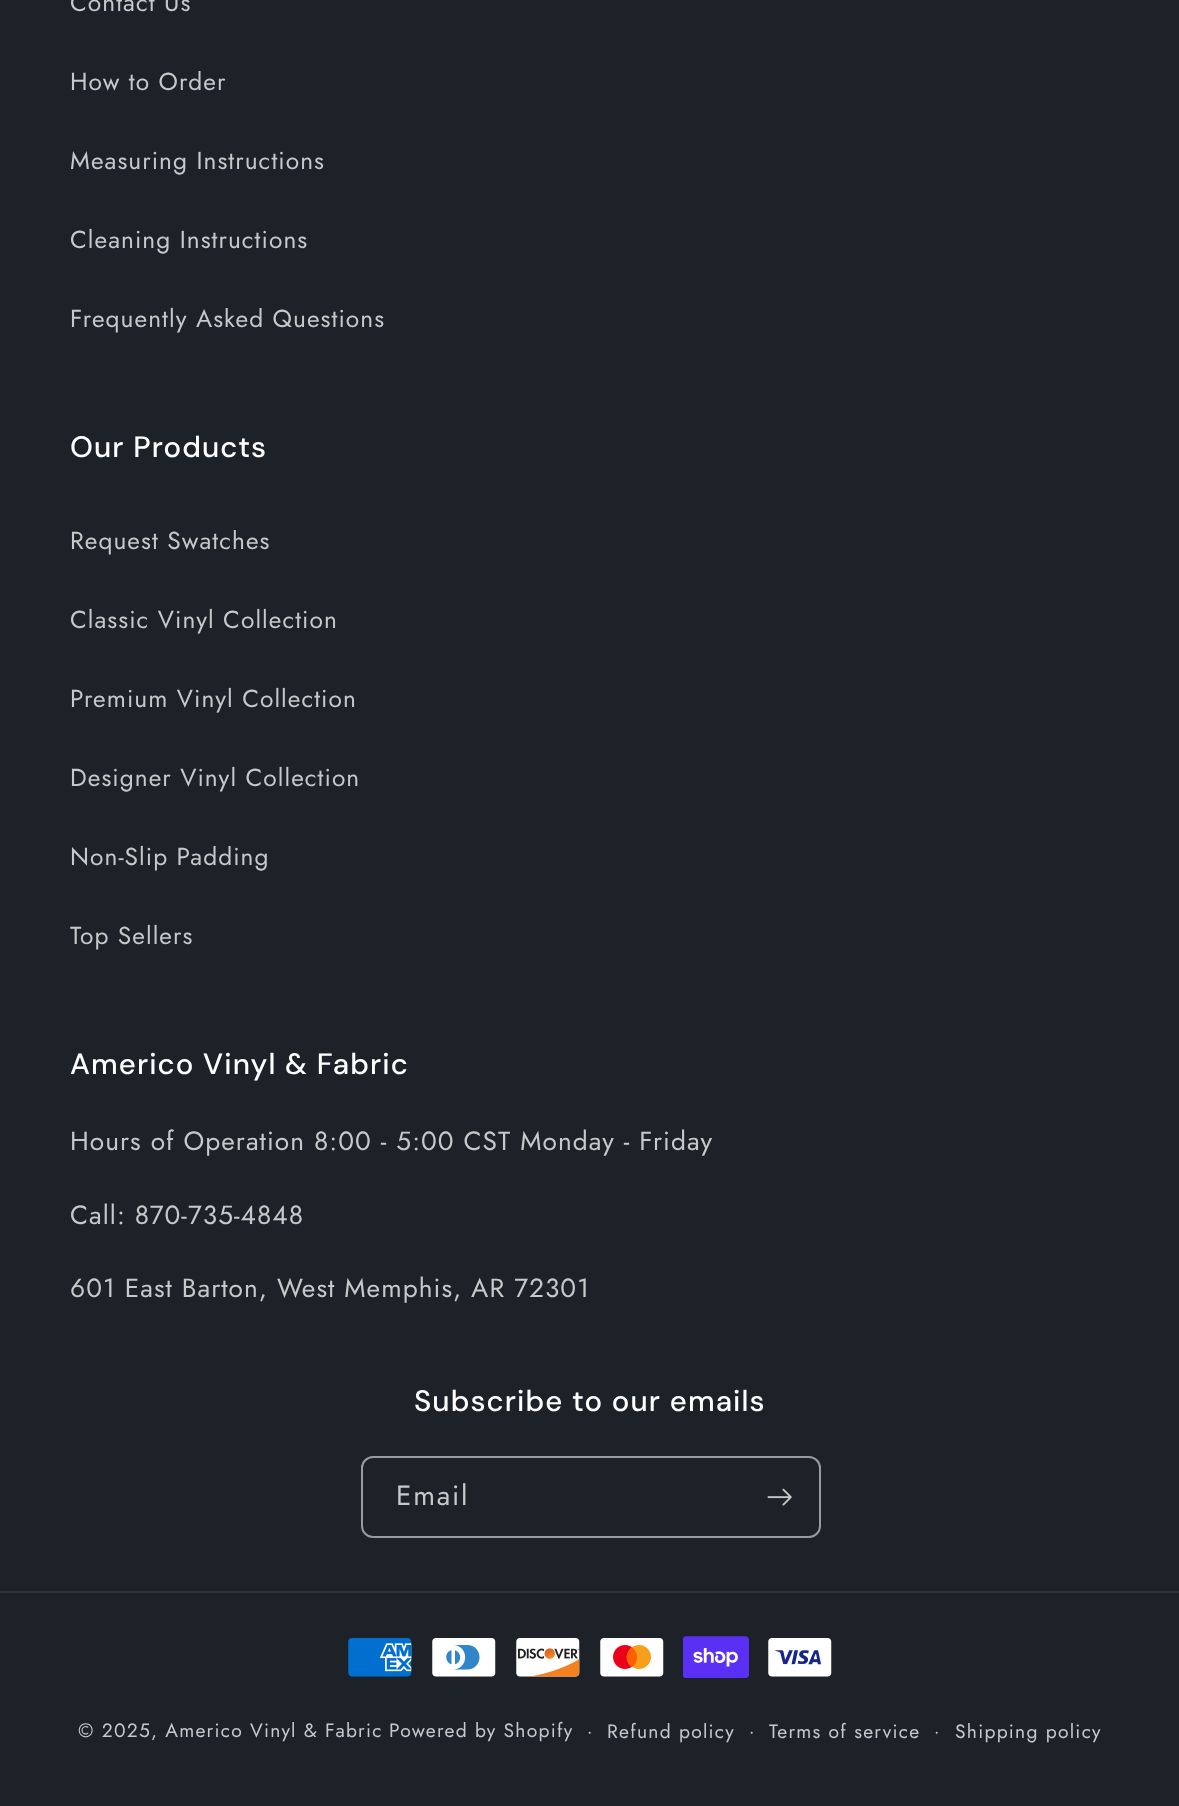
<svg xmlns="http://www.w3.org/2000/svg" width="1179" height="1806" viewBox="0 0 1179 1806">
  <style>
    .t1 { font: 24.5px Jost; letter-spacing: 1.05px; fill: #c6c8c9; }
    .t2 { font: 500 29.4px DM Sans; letter-spacing: 1.1px; fill: #fff; }
    .t3 { font: 26.25px Jost; letter-spacing: 1.05px; fill: #c6c8c9; }
    .t4 { font: 28px Jost; letter-spacing: 1.75px; fill: #c6c8c9; }
    .t5 { font: 19.25px Jost; letter-spacing: 1.25px; fill: #c6c8c9; }
    .t6 { font: 18px Jost; letter-spacing: 1.25px; fill: #c6c8c9; }
  </style>
  <rect width="100%" height="100%" fill="#1c2228"/>
  <text x="70" y="11" class="t1">Contact Us</text>
  <text x="70" y="90" class="t1">How to Order</text>
  <text x="70" y="169" class="t1">Measuring Instructions</text>
  <text x="70" y="248" class="t1">Cleaning Instructions</text>
  <text x="70" y="327" class="t1">Frequently Asked Questions</text>
  <text x="70" y="457" class="t2">Our Products</text>
  <text x="70" y="549" class="t1">Request Swatches</text>
  <text x="70" y="628" class="t1">Classic Vinyl Collection</text>
  <text x="70" y="707" class="t1">Premium Vinyl Collection</text>
  <text x="70" y="786" class="t1">Designer Vinyl Collection</text>
  <text x="70" y="865" class="t1">Non-Slip Padding</text>
  <text x="70" y="944" class="t1">Top Sellers</text>
  <text x="70" y="1074" class="t2">Americo Vinyl &amp; Fabric</text>
  <text x="70" y="1150" class="t3">Hours of Operation 8:00 - 5:00 CST Monday - Friday</text>
  <text x="70" y="1224" class="t3">Call: 870-735-4848</text>
  <text x="70" y="1297" class="t3">601 East Barton, West Memphis, AR 72301</text>
  <text x="414" y="1411" class="t2">Subscribe to our emails</text>
  <rect x="362" y="1457" width="458" height="80" rx="11" fill="none" stroke="#999c9e" stroke-width="2"/>
  <text x="396" y="1505" class="t4">Email</text>
  <image x="767" y="1488" width="25" height="18" href="images/1.png"/>
  <rect x="0" y="1591" width="1179" height="2" fill="#2e3439"/>
  <image x="348" y="1638" width="64" height="39" href="images/2.png"/>
  <image x="432" y="1638" width="64" height="39" href="images/3.png"/>
  <image x="516" y="1638" width="64" height="39" href="images/4.png"/>
  <image x="600" y="1638" width="64" height="39" href="images/5.png"/>
  <image x="683" y="1636" width="66" height="42" href="images/6.png"/>
  <image x="768" y="1638" width="64" height="39" href="images/7.png"/>
  <text x="78" y="1737" class="t5">© 2025, Americo Vinyl &amp; Fabric</text>
  <text x="389" y="1737" class="t5">Powered by Shopify</text>
  <text x="587" y="1737" class="t6">·</text>
  <text x="607" y="1738" class="t5">Refund policy</text>
  <text x="749" y="1737" class="t6">·</text>
  <text x="769" y="1738" class="t5">Terms of service</text>
  <text x="934" y="1737" class="t6">·</text>
  <text x="955" y="1738" class="t5">Shipping policy</text>
</svg>
